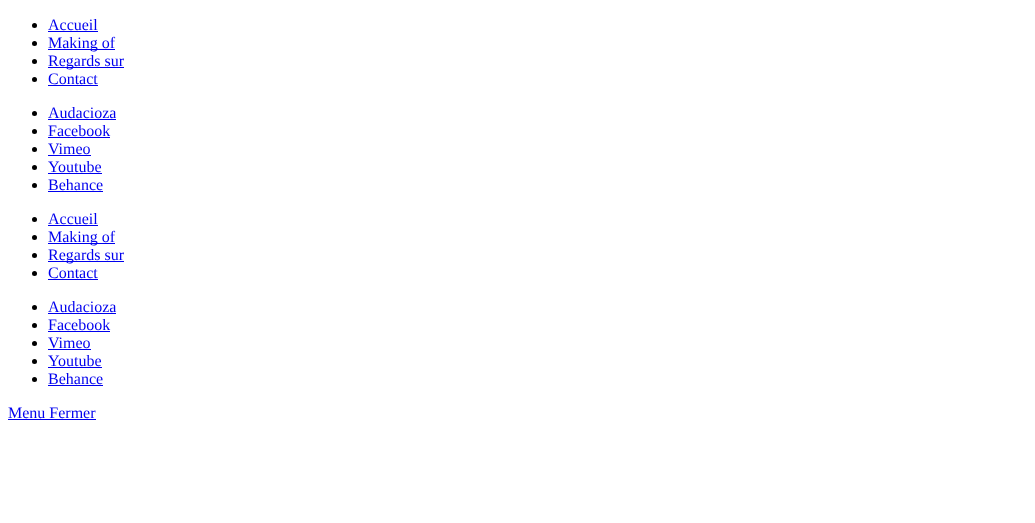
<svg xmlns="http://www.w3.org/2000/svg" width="1035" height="523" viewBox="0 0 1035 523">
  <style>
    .t1 { font: 16px Liberation Serif; fill: #00e; }
  </style>
  <rect width="100%" height="100%" fill="#fff"/>
  <circle cx="34.5" cy="25.5" r="2.5" fill="#000"/>
  <text x="48" y="30" class="t1">Accueil</text>
  <rect x="48" y="31" width="50" height="1" fill="#00e"/>
  <circle cx="34.5" cy="43.5" r="2.5" fill="#000"/>
  <rect x="48" y="49" width="67" height="1" fill="#00e"/>
  <text x="48" y="48" class="t1">Making of</text>
  <circle cx="34.5" cy="61.5" r="2.5" fill="#000"/>
  <rect x="48" y="67" width="76" height="1" fill="#00e"/>
  <text x="48" y="66" class="t1">Regards sur</text>
  <circle cx="34.5" cy="79.5" r="2.5" fill="#000"/>
  <text x="48" y="84" class="t1">Contact</text>
  <rect x="48" y="85" width="50" height="1" fill="#00e"/>
  <circle cx="34.5" cy="113.5" r="2.5" fill="#000"/>
  <text x="48" y="118" class="t1">Audacioza</text>
  <rect x="48" y="119" width="68" height="1" fill="#00e"/>
  <circle cx="34.5" cy="131.5" r="2.5" fill="#000"/>
  <text x="48" y="136" class="t1">Facebook</text>
  <rect x="48" y="137" width="62" height="1" fill="#00e"/>
  <circle cx="34.5" cy="149.5" r="2.5" fill="#000"/>
  <text x="48" y="154" class="t1">Vimeo</text>
  <rect x="48" y="155" width="43" height="1" fill="#00e"/>
  <circle cx="34.5" cy="167.5" r="2.5" fill="#000"/>
  <text x="48" y="172" class="t1">Youtube</text>
  <rect x="48" y="173" width="54" height="1" fill="#00e"/>
  <circle cx="34.5" cy="185.5" r="2.5" fill="#000"/>
  <text x="48" y="190" class="t1">Behance</text>
  <rect x="48" y="191" width="55" height="1" fill="#00e"/>
  <circle cx="34.5" cy="219.5" r="2.5" fill="#000"/>
  <text x="48" y="224" class="t1">Accueil</text>
  <rect x="48" y="225" width="50" height="1" fill="#00e"/>
  <circle cx="34.5" cy="237.5" r="2.5" fill="#000"/>
  <rect x="48" y="243" width="67" height="1" fill="#00e"/>
  <text x="48" y="242" class="t1">Making of</text>
  <circle cx="34.5" cy="255.5" r="2.5" fill="#000"/>
  <rect x="48" y="261" width="76" height="1" fill="#00e"/>
  <text x="48" y="260" class="t1">Regards sur</text>
  <circle cx="34.5" cy="273.5" r="2.5" fill="#000"/>
  <text x="48" y="278" class="t1">Contact</text>
  <rect x="48" y="279" width="50" height="1" fill="#00e"/>
  <circle cx="34.5" cy="307.5" r="2.5" fill="#000"/>
  <text x="48" y="312" class="t1">Audacioza</text>
  <rect x="48" y="313" width="68" height="1" fill="#00e"/>
  <circle cx="34.5" cy="325.5" r="2.5" fill="#000"/>
  <text x="48" y="330" class="t1">Facebook</text>
  <rect x="48" y="331" width="62" height="1" fill="#00e"/>
  <circle cx="34.5" cy="343.5" r="2.5" fill="#000"/>
  <text x="48" y="348" class="t1">Vimeo</text>
  <rect x="48" y="349" width="43" height="1" fill="#00e"/>
  <circle cx="34.5" cy="361.5" r="2.5" fill="#000"/>
  <text x="48" y="366" class="t1">Youtube</text>
  <rect x="48" y="367" width="54" height="1" fill="#00e"/>
  <circle cx="34.5" cy="379.5" r="2.5" fill="#000"/>
  <text x="48" y="384" class="t1">Behance</text>
  <rect x="48" y="385" width="55" height="1" fill="#00e"/>
  <text x="8" y="418" class="t1">Menu Fermer</text>
  <rect x="8" y="419" width="88" height="1" fill="#00e"/>
</svg>
